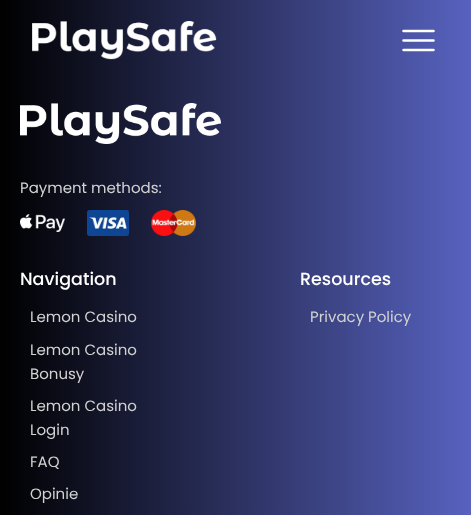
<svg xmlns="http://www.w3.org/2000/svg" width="471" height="515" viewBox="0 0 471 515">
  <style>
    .t1 { font: 15px Poppins; fill: #d2d2d2; }
    .t2 { font: 500 17.5px Poppins; fill: #fff; }
  </style>
  <defs>
    <linearGradient id="g1" gradientUnits="userSpaceOnUse" x1="0" y1="322" x2="471" y2="322"><stop offset="0" stop-color="#000"/><stop offset="1" stop-color="#5762bf"/></linearGradient>
    <linearGradient id="g2" gradientUnits="userSpaceOnUse" x1="0" y1="40" x2="471" y2="40"><stop offset="0" stop-color="#000"/><stop offset="1" stop-color="#5762bf"/></linearGradient>
  </defs>
  <rect width="100%" height="100%" fill="#fff"/>
  <rect x="0" y="80" width="471" height="435" fill="url(#g1)"/>
  <rect x="0" y="0" width="471" height="80" fill="url(#g2)"/>
  <image x="32" y="21" width="185" height="39" href="images/1.png"/>
  <path d="M433.5 31H403.5M433.5 40.5H403.5M433.5 50H403.5" fill="none" stroke="#fff" stroke-width="2.5" stroke-linecap="round"/>
  <image x="20" y="103" width="201" height="41" href="images/2.png"/>
  <text x="20" y="193" class="t1">Payment methods:</text>
  <image x="20" y="214" width="45" height="18" href="images/3.png"/>
  <image x="87" y="210" width="42" height="26" href="images/4.png"/>
  <image x="151" y="210" width="45" height="26" href="images/5.png"/>
  <text x="20" y="285" class="t2">Navigation</text>
  <text x="30" y="322" class="t1">Lemon Casino</text>
  <text x="30" y="355" class="t1">Lemon Casino</text>
  <text x="30" y="379" class="t1">Bonusy</text>
  <text x="30" y="411" class="t1">Lemon Casino</text>
  <text x="30" y="435" class="t1">Login</text>
  <text x="30" y="467" class="t1">FAQ</text>
  <text x="30" y="499" class="t1">Opinie</text>
  <text x="300" y="285" class="t2">Resources</text>
  <text x="310" y="322" class="t1">Privacy Policy</text>
</svg>
